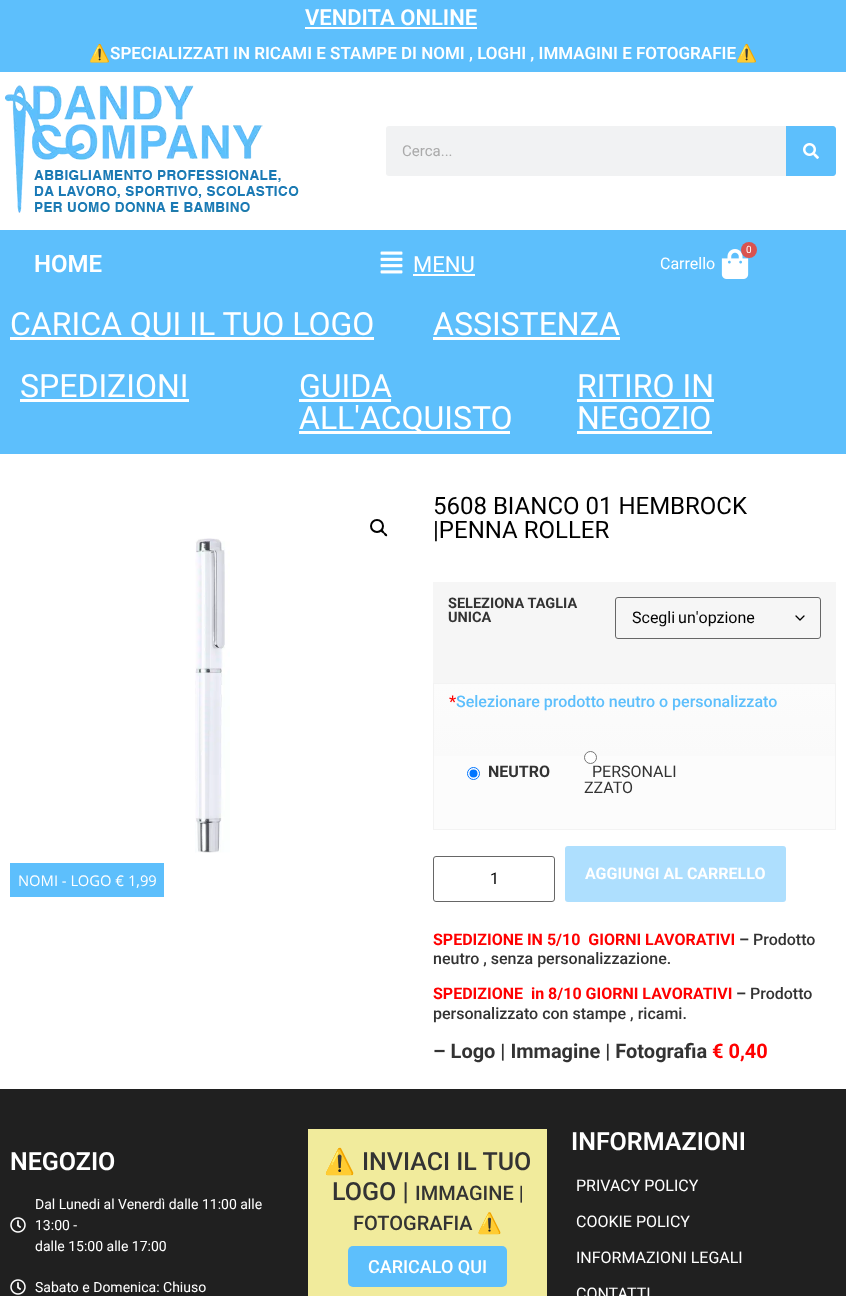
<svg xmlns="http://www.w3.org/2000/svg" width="846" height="1296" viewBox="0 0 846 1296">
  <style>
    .t1 { font: 600 22px Roboto; fill: #fff; }
    .t2 { font: bold 17px Noto Color Emoji; fill: #fff; }
    .t3 { font: 600 17px Roboto; fill: #fff; }
    .t4 { font: 15px Roboto; fill: #aaa; }
    .t5 { font: 600 24px Roboto; fill: #fff; }
    .t6 { font: 22px Roboto; fill: #fff; }
    .t7 { font: 10px Roboto; fill: #fff; }
    .t8 { font: 16px Roboto; fill: #fff; }
    .t9 { font: 32px Roboto; fill: #fff; }
    .t10 { font: 14.75px Open Sans; fill: #fff; }
    .t11 { font: 24px Roboto; fill: #000; }
    .t12 { font: bold 14.5px Roboto; fill: #333; }
    .t13 { font: 16px Roboto; fill: #000; }
    .t14 { font: 500 16px Roboto; fill: #f00; }
    .t15 { font: 500 16px Roboto; fill: #5dbffc; }
    .t16 { font: bold 16px Roboto; fill: #333; }
    .t17 { font: 16px Roboto; fill: #333; }
    .t18 { font: bold 16px Roboto; fill: #fff; }
    .t19 { font: bold 16px Roboto; fill: #f00; }
    .t20 { font: 500 16px Roboto; fill: #333; }
    .t21 { font: bold 20px Roboto; fill: #333; }
    .t22 { font: bold 20px Roboto; fill: #f00; }
    .t23 { font: 600 25px Roboto; fill: #fff; }
    .t24 { font: 14px Roboto; fill: #fff; }
    .t25 { font: 25px Noto Color Emoji; fill: #333; }
    .t26 { font: 500 25px Roboto; fill: #333; }
    .t27 { font: 500 20px Roboto; fill: #333; }
    .t28 { font: 20px Noto Color Emoji; fill: #333; }
    .t29 { font: 500 18px Roboto; fill: #fff; }
  </style>
  <defs>
    <linearGradient id="g1" gradientUnits="userSpaceOnUse" x1="635" y1="829" x2="635" y2="684"><stop offset="0" stop-color="#fcfcfc"/><stop offset="0.5" stop-color="#fcfcfc"/><stop offset="0.5" stop-color="#fafafa"/><stop offset="1" stop-color="#fcfcfc"/></linearGradient>
  </defs>
  <rect width="100%" height="100%" fill="#fff"/>
  <rect x="0" y="0" width="846" height="72" fill="#5dbffc"/>
  <text x="305" y="25" class="t1">VENDITA ONLINE</text>
  <rect x="305" y="27" width="172" height="2" fill="#fff"/>
  <text x="89" y="59" class="t2">⚠️</text>
  <text x="110" y="59" class="t3">SPECIALIZZATI IN RICAMI E STAMPE DI NOMI , LOGHI , IMMAGINI E FOTOGRAFIE</text>
  <text x="736" y="59" class="t2">⚠️</text>
  <image x="5" y="85" width="294" height="128" href="images/1.png"/>
  <rect x="386" y="126" width="450" height="50" rx="3" fill="#f1f2f3"/>
  <text x="402" y="156" class="t4">Cerca...</text>
  <path d="M786 126H833C834.5 126 836 127.5 836 129V173C836 174.5 834.5 176 833 176H786Z" fill="#5dbffc"/>
  <image x="803" y="143" width="16" height="16" href="images/2.png"/>
  <rect x="0" y="230" width="846" height="224" fill="#5dbffc"/>
  <text x="34" y="272" class="t5">HOME</text>
  <image x="380" y="251" width="23" height="23" href="images/3.png"/>
  <text x="413" y="272" class="t6">MENU</text>
  <rect x="413" y="274" width="62" height="2" fill="#fff"/>
  <image x="721" y="249" width="28" height="30" href="images/4.png"/>
  <circle cx="749" cy="250" r="8" fill="#d9534f"/>
  <text x="746" y="253" class="t7">0</text>
  <text x="660" y="269" class="t8">Carrello</text>
  <rect x="10" y="337" width="364" height="3" fill="#fff"/>
  <text x="10" y="335" class="t9">CARICA QUI IL TUO LOGO</text>
  <text x="433" y="335" class="t9">ASSISTENZA</text>
  <rect x="433" y="337" width="187" height="3" fill="#fff"/>
  <text x="20" y="397" class="t9">SPEDIZIONI</text>
  <rect x="20" y="399" width="169" height="3" fill="#fff"/>
  <text x="299" y="397" class="t9">GUIDA</text>
  <rect x="299" y="399" width="92" height="3" fill="#fff"/>
  <rect x="299" y="431" width="211" height="3" fill="#fff"/>
  <text x="299" y="429" class="t9">ALL'ACQUISTO</text>
  <text x="577" y="397" class="t9">RITIRO IN</text>
  <rect x="577" y="399" width="137" height="3" fill="#fff"/>
  <text x="577" y="429" class="t9">NEGOZIO</text>
  <rect x="577" y="431" width="135" height="3" fill="#fff"/>
  <circle cx="377" cy="526" r="6" fill="none" stroke="#000" stroke-width="2"/>
  <path d="M381 530C382.5 529 384 531.5 384.5 532.5C385.5 533 388 534.5 387 536C385.5 537 384 534.5 383.5 533.5C382.5 533 380 531.5 381 530Z" fill="#000"/>
  <image x="195" y="538" width="35" height="315" href="images/5.png"/>
  <rect x="10" y="863" width="154" height="34" fill="#5dbffc"/>
  <text x="18" y="886" class="t10">NOMI - LOGO € 1,99</text>
  <text x="433" y="514" class="t11">5608 BIANCO 01 HEMBROCK</text>
  <text x="433" y="538" class="t11">|PENNA ROLLER</text>
  <rect x="433" y="582" width="403" height="101" fill="#f6f6f6"/>
  <text x="448" y="608" class="t12">SELEZIONA TAGLIA</text>
  <text x="448" y="622" class="t12">UNICA</text>
  <path d="M796 616L800 620L804 616" fill="none" stroke="#000" stroke-width="1.3" stroke-linecap="round" stroke-linejoin="round"/>
  <rect x="615.5" y="597.5" width="205" height="41" rx="2.5" fill="none" stroke="#666"/>
  <text x="632" y="623" word-spacing="-1" class="t13">Scegli un'opzione</text>
  <rect x="434" y="684" width="401" height="145" fill="url(#g1)"/>
  <rect x="433.5" y="683.5" width="402" height="146" fill="none" stroke="#f3f3f3"/>
  <text x="449" y="707" class="t14">*</text>
  <text x="456" y="707" class="t15">Selezionare prodotto neutro o personalizzato</text>
  <circle cx="473.5" cy="773.5" r="6" fill="#fff" stroke="#0075ff"/>
  <circle cx="473.5" cy="773.5" r="4" fill="#0075ff"/>
  <text x="488" y="777" class="t16">NEUTRO</text>
  <circle cx="590.5" cy="757.5" r="6" fill="#fff" stroke="#767676"/>
  <text x="592" y="777" class="t17">PERSONALI</text>
  <text x="584" y="793" class="t17">ZZATO</text>
  <rect x="433.5" y="856.5" width="121" height="45" rx="2.5" fill="none" stroke="#666"/>
  <text x="490" y="884" class="t13">1</text>
  <rect x="565" y="846" width="221" height="56" rx="3" fill="#aedffe"/>
  <text x="585" y="879" class="t18">AGGIUNGI AL CARRELLO</text>
  <text x="433" y="945" class="t19" xml:space="preserve">SPEDIZIONE IN 5/10  GIORNI LAVORATIVI</text>
  <text x="739" y="945" class="t16">–</text>
  <text x="753" y="945" class="t20">Prodotto</text>
  <text x="433" y="964" class="t20">neutro , senza personalizzazione.</text>
  <text x="433" y="999" class="t19" xml:space="preserve">SPEDIZIONE  in 8/10 GIORNI LAVORATIVI</text>
  <text x="736" y="999" class="t16">–</text>
  <text x="750" y="999" class="t20">Prodotto</text>
  <text x="433" y="1019" class="t20">personalizzato con stampe , ricami.</text>
  <text x="433" y="1058" class="t21">– Logo | Immagine | Fotografia</text>
  <text x="712" y="1058" class="t22">€ 0,40</text>
  <rect x="0" y="1089" width="846" height="207" fill="#202020"/>
  <text x="10" y="1170" class="t23">NEGOZIO</text>
  <image x="10" y="1217" width="16" height="16" href="images/6.png"/>
  <text x="35" y="1209" class="t24">Dal Lunedi al Venerdì dalle 11:00 alle</text>
  <text x="35" y="1230" class="t24">13:00 -</text>
  <text x="35" y="1251" class="t24">dalle 15:00 alle 17:00</text>
  <image x="10" y="1279" width="16" height="16" href="images/6.png"/>
  <text x="35" y="1292" class="t24">Sabato e Domenica: Chiuso</text>
  <rect x="308" y="1129" width="239" height="167" fill="#f1eb9c"/>
  <text x="324" y="1170" class="t25">⚠️</text>
  <text x="362" y="1170" class="t26">INVIACI IL TUO</text>
  <text x="332" y="1200" class="t26">LOGO |</text>
  <text x="415" y="1200" class="t27">IMMAGINE |</text>
  <text x="353" y="1230" class="t27">FOTOGRAFIA</text>
  <text x="477" y="1230" class="t28">⚠️</text>
  <rect x="348" y="1246" width="159" height="41" rx="5" fill="#5dbffc"/>
  <text x="368" y="1273" class="t29">CARICALO QUI</text>
  <text x="571" y="1150" class="t23">INFORMAZIONI</text>
  <text x="576" y="1191" class="t8">PRIVACY POLICY</text>
  <text x="576" y="1227" class="t8">COOKIE POLICY</text>
  <text x="576" y="1263" class="t8">INFORMAZIONI LEGALI</text>
  <text x="576" y="1299" class="t8">CONTATTI</text>
</svg>
